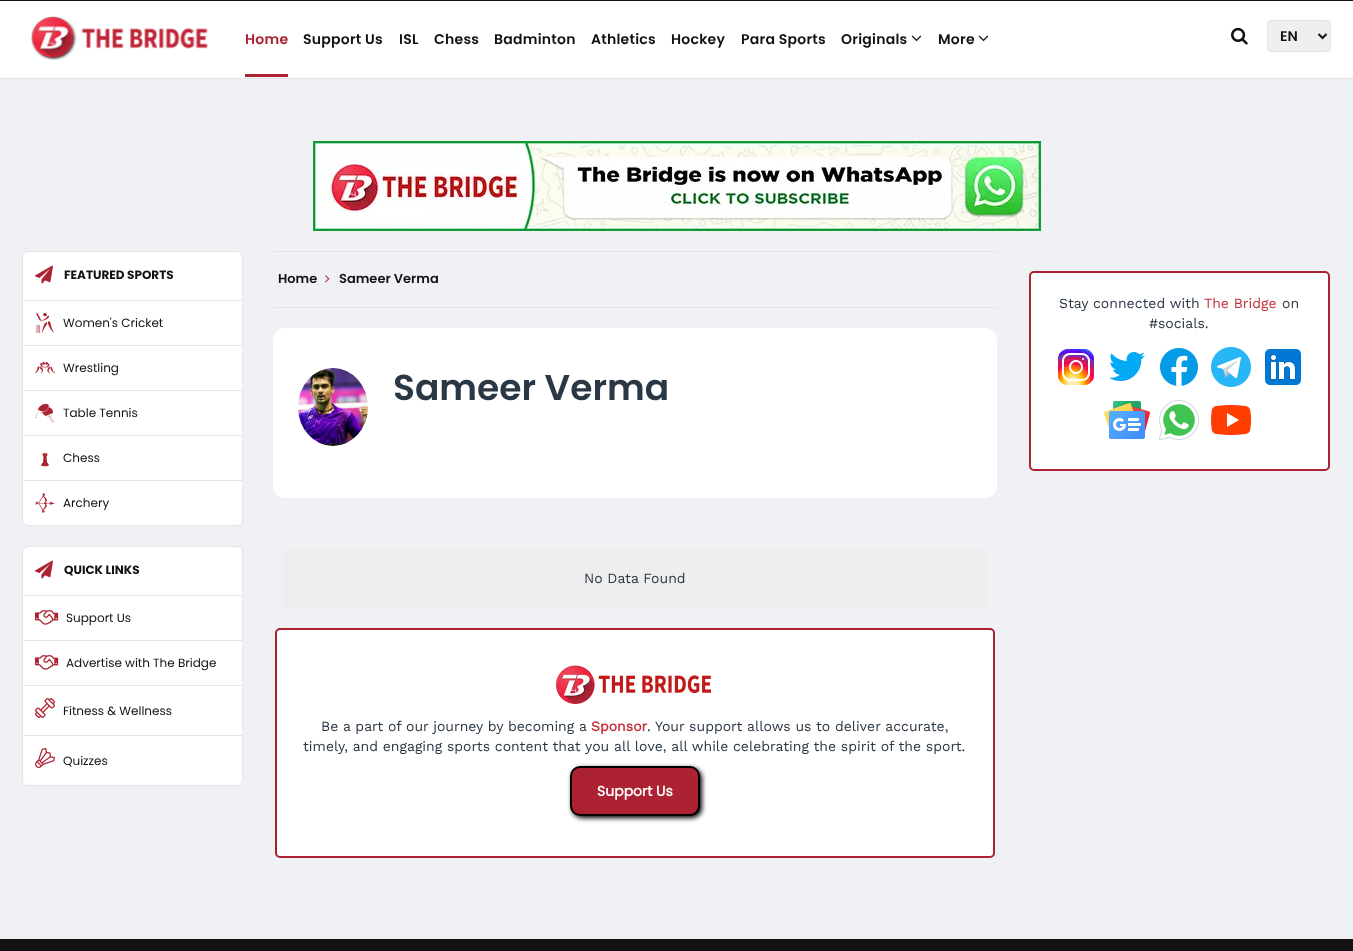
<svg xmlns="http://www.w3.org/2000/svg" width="1353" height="951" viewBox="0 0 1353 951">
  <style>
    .t1 { font: 600 14px Poppins; letter-spacing: 0.25px; fill: #ac2333; }
    .t2 { font: 600 14px Poppins; letter-spacing: 0.25px; fill: #121212; }
    .t3 { font: 600 14px Poppins; fill: #121212; }
    .t4 { font: bold 12px 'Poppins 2'; fill: #121212; }
    .t5 { font: 12px Poppins; fill: #121212; }
    .t6 { font: 600 13px Poppins; fill: #121212; }
    .t7 { font: 600 36px Poppins; fill: #2a3744; }
    .t8 { font: 14px Work Sans; fill: #2a3744; }
    .t9 { font: bold 14px Work Sans; fill: #c22d38; }
    .t10 { font: bold 14px Poppins; fill: #fff; }
    .t11 { font: 14px Work Sans; fill: #c22d38; }
  </style>
  <rect width="100%" height="100%" fill="#eff1f5"/>
  <rect x="0" y="0" width="1353" height="1" fill="#121212"/>
  <rect x="0" y="1" width="1353" height="77" fill="#fff"/>
  <rect x="0" y="78" width="1353" height="1" fill="#e5e5e5"/>
  <image x="31" y="16" width="177" height="44" href="images/1.png"/>
  <text x="245" y="44" class="t1">Home</text>
  <rect x="245" y="74" width="43" height="3" fill="#ac2333"/>
  <text x="303" y="44" class="t2">Support Us</text>
  <text x="399" y="44" class="t2">ISL</text>
  <text x="434" y="44" class="t2">Chess</text>
  <text x="494" y="44" class="t2">Badminton</text>
  <text x="591" y="44" class="t2">Athletics</text>
  <text x="671" y="44" class="t2">Hockey</text>
  <text x="741" y="44" class="t2">Para Sports</text>
  <text x="841" y="44" class="t2">Originals</text>
  <image x="911" y="35" width="11" height="7" href="images/2.png"/>
  <text x="938" y="44" class="t2">More</text>
  <image x="978" y="35" width="11" height="7" href="images/2.png"/>
  <image x="1231" y="27" width="17" height="18" href="images/3.png"/>
  <rect x="1267.5" y="20.5" width="63" height="31" rx="3.5" fill="#efefef" stroke="#e5e5e5"/>
  <path d="M1318.5 34L1322.5 38L1326.5 34" fill="none" stroke="#121212" stroke-width="2"/>
  <text x="1280" y="41" class="t3">EN</text>
  <image x="313" y="141" width="728" height="90" href="images/4.png"/>
  <rect x="22.5" y="251.5" width="220" height="274" rx="5.5" fill="#fff" stroke="#e5e5e5"/>
  <rect x="23" y="300" width="219" height="1" fill="#e5e5e5"/>
  <image x="35" y="265" width="18" height="19" href="images/5.png"/>
  <text x="64" y="279" class="t4">FEATURED SPORTS</text>
  <rect x="23" y="345" width="219" height="1" fill="#e5e5e5"/>
  <image x="36" y="313" width="18" height="20" href="images/6.png"/>
  <text x="63" y="327" class="t5">Women's Cricket</text>
  <rect x="23" y="390" width="219" height="1" fill="#e5e5e5"/>
  <image x="35" y="362" width="20" height="12" href="images/7.png"/>
  <text x="63" y="372" class="t5">Wrestling</text>
  <rect x="23" y="435" width="219" height="1" fill="#e5e5e5"/>
  <image x="35" y="403" width="20" height="20" href="images/8.png"/>
  <text x="63" y="417" class="t5">Table Tennis</text>
  <rect x="23" y="480" width="219" height="1" fill="#e5e5e5"/>
  <image x="41" y="452" width="8" height="15" href="images/9.png"/>
  <text x="63" y="462" class="t5">Chess</text>
  <image x="35" y="493" width="20" height="20" href="images/10.png"/>
  <text x="63" y="507" class="t5">Archery</text>
  <rect x="22.5" y="546.5" width="220" height="239" rx="5.5" fill="#fff" stroke="#e5e5e5"/>
  <rect x="23" y="595" width="219" height="1" fill="#e5e5e5"/>
  <image x="35" y="560" width="18" height="19" href="images/5.png"/>
  <text x="64" y="574" class="t4">QUICK LINKS</text>
  <rect x="23" y="640" width="219" height="1" fill="#e5e5e5"/>
  <image x="35" y="610" width="24" height="15" href="images/11.png"/>
  <text x="66" y="622" class="t5">Support Us</text>
  <rect x="23" y="685" width="219" height="1" fill="#e5e5e5"/>
  <image x="35" y="655" width="24" height="15" href="images/11.png"/>
  <text x="66" y="667" class="t5">Advertise with The Bridge</text>
  <rect x="23" y="735" width="219" height="1" fill="#e5e5e5"/>
  <image x="35" y="698" width="20" height="20" href="images/12.png"/>
  <text x="63" y="715" class="t5">Fitness &amp; Wellness</text>
  <image x="35" y="748" width="20" height="20" href="images/13.png"/>
  <text x="63" y="765" class="t5">Quizzes</text>
  <rect x="273" y="251" width="724" height="1" fill="#e5e5e5"/>
  <rect x="273" y="307" width="724" height="1" fill="#e5e5e5"/>
  <text x="278" y="283" class="t6">Home</text>
  <image x="325" y="275" width="5" height="8" href="images/14.png"/>
  <text x="339" y="283" class="t6">Sameer Verma</text>
  <rect x="273" y="328" width="724" height="170" rx="12" fill="#fff"/>
  <image x="298" y="368" width="70" height="78" href="images/15.png"/>
  <text x="393" y="400" class="t7">Sameer Verma</text>
  <rect x="283" y="548" width="704" height="60" fill="#eee"/>
  <text x="584" y="583" class="t8">No Data Found</text>
  <rect x="276" y="629" width="718" height="228" rx="4" fill="#fff" stroke="#ab2233" stroke-width="2"/>
  <image x="556" y="665" width="155" height="39" href="images/16.png"/>
  <text x="321" y="731" class="t8">Be a part of our journey by becoming a</text>
  <text x="591" y="731" class="t9">Sponsor</text>
  <text x="647" y="731" class="t8">. Your support allows us to deliver accurate,</text>
  <text x="303" y="751" class="t8">timely, and engaging sports content that you all love, all while celebrating the spirit of the sport.</text>
  <rect x="572" y="768" width="130" height="50" rx="10" fill="#000" filter="blur(2.5px)"/>
  <rect x="571" y="767" width="128" height="48" rx="9" fill="#ad2233" stroke="#000" stroke-width="2"/>
  <text x="597" y="796" class="t10">Support Us</text>
  <rect x="1030" y="272" width="299" height="198" rx="4" fill="#fff" stroke="#ab2233" stroke-width="2"/>
  <text x="1059" y="308" class="t8">Stay connected with</text>
  <text x="1204" y="308" class="t11">The Bridge</text>
  <text x="1282" y="308" class="t8">on</text>
  <text x="1149" y="328" class="t8">#socials.</text>
  <image x="1058" y="349" width="36" height="36" href="images/17.png"/>
  <image x="1109" y="352" width="36" height="29" href="images/18.png"/>
  <image x="1160" y="348" width="38" height="38" href="images/19.png"/>
  <image x="1211" y="347" width="40" height="40" href="images/20.png"/>
  <image x="1265" y="349" width="36" height="36" href="images/21.png"/>
  <image x="1104" y="401" width="46" height="38" href="images/22.png"/>
  <image x="1159" y="400" width="40" height="41" href="images/23.png"/>
  <image x="1211" y="405" width="41" height="30" href="images/24.png"/>
  <rect x="0" y="939" width="1353" height="12" fill="#121212"/>
</svg>
